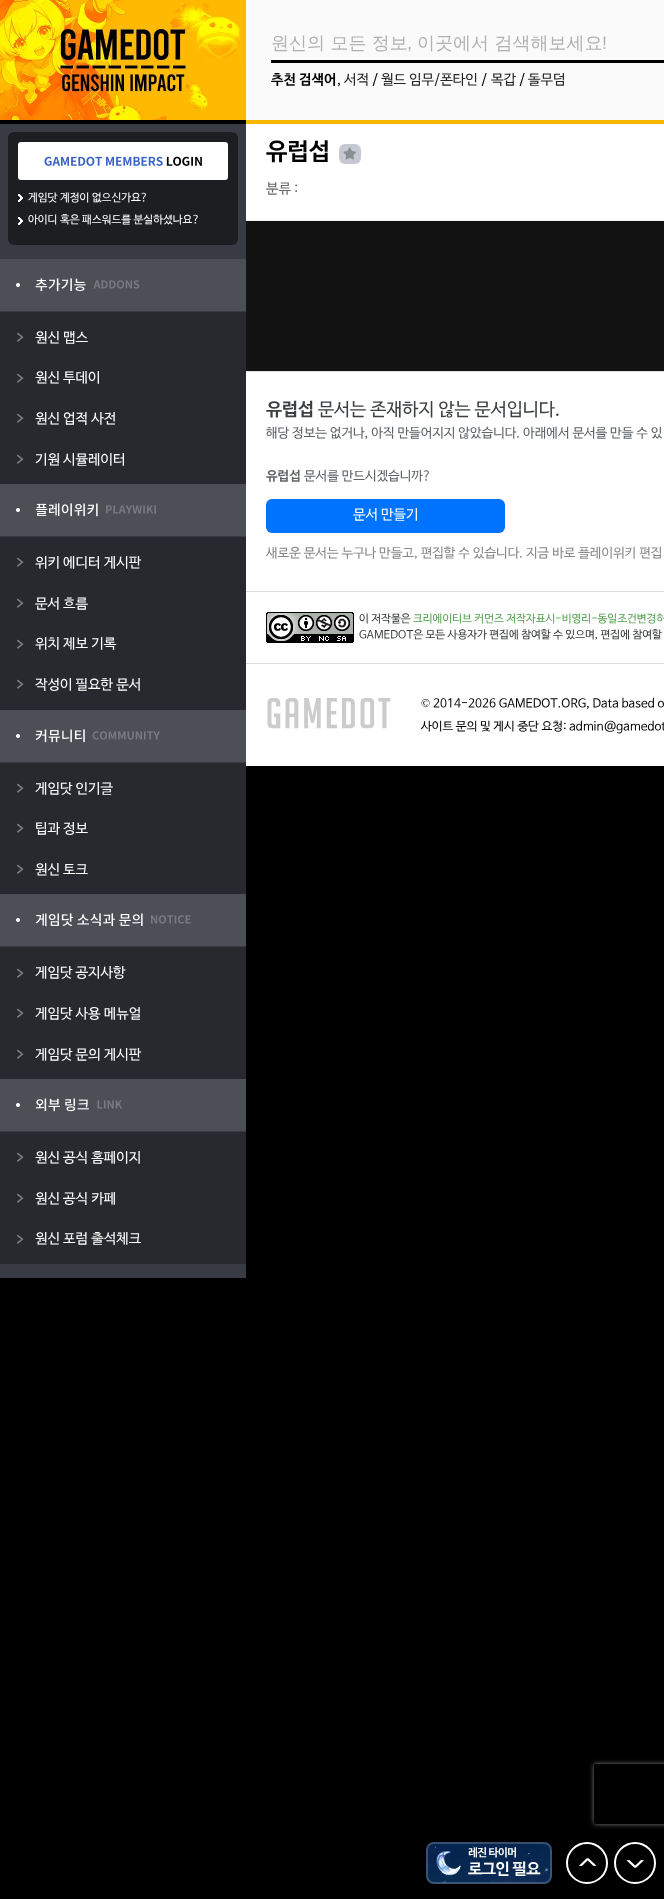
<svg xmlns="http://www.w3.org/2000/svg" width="664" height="1899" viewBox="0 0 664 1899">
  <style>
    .t1 { font: 11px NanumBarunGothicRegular; fill: #fff; }
    .t2 { font: 14px NanumBarunGothicRegular; fill: #fff; }
    .t3 { font: 500 18px WenQuanYi Zen Hei; fill: #b1b1b1; }
    .t4 { font: 18px Liberation Sans; fill: #b1b1b1; }
    .t5 { font: bold 14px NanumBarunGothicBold; fill: #000; }
    .t6 { font: 14px NanumBarunGothicRegular; fill: #000; }
    .t7 { font: 14px NanumBarunGothicRegular; fill: #252525; }
    .t8 { font: bold 24px NanumBarunGothicBold; fill: #000; }
    .t9 { font: 14px NanumBarunGothicRegular; fill: #6a6a6a; }
    .t10 { font: bold 18px NanumBarunGothicBold; fill: #3c4043; }
    .t11 { font: 18px NanumBarunGothicRegular; fill: #3c4043; }
    .t12 { font: 13px NanumBarunGothicRegular; fill: #5f6368; }
    .t13 { font: bold 13px NanumBarunGothicBold; fill: #5f6368; }
    .t14 { font: 13px NanumBarunGothicRegular; fill: #888; }
    .t15 { font: 11px NanumBarunGothicRegular; fill: #373a3c; }
    .t16 { font: 11px NanumBarunGothicRegular; fill: #55a251; }
    .t17 { font: 12px Liberation Serif; fill: #000; }
    .t18 { font: 12px NanumBarunGothicRegular; fill: #000; }
    .t19 { font: bold 11px NanumBarunGothicBold; letter-spacing: -0.5px; fill: #fff; }
    .t20 { font: bold 16px NanumBarunGothicBold; letter-spacing: -0.5px; fill: #fff; }
  </style>
  <defs>
    <clipPath id="clip1"><path d="M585 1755H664V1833H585ZM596 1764H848C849 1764 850 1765 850 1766V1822C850 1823 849 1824 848 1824H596C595 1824 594 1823 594 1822V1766C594 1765 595 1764 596 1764Z" clip-rule="evenodd"/></clipPath>
  </defs>
  <rect width="100%" height="100%" fill="#000"/>
  <rect x="0" y="124" width="246" height="1154" fill="#383b43"/>
  <image x="0" y="0" width="246" height="120" href="images/1.png"/>
  <rect x="8" y="132" width="230" height="113" rx="6" fill="#1c1e22"/>
  <rect x="18" y="142" width="210" height="38" rx="3" fill="#fff"/>
  <image x="44" y="156" width="158" height="10" href="images/2.png"/>
  <image x="18" y="194" width="5" height="8" href="images/3.png"/>
  <text x="28" y="201" class="t1">게임닷 계정이 없으신가요?</text>
  <image x="18" y="217" width="5" height="8" href="images/3.png"/>
  <text x="28" y="223" class="t1">아이디 혹은 패스워드를 분실하셨나요?</text>
  <rect x="0" y="259" width="246" height="52" fill="#4c4f56"/>
  <image x="16" y="278" width="124" height="14" href="images/4.png"/>
  <rect x="0" y="312" width="246" height="172" fill="#27292f"/>
  <image x="17" y="332" width="7" height="10" href="images/5.png"/>
  <text x="35" y="342" class="t2">원신 맵스</text>
  <image x="17" y="373" width="7" height="10" href="images/5.png"/>
  <text x="35" y="382" class="t2">원신 투데이</text>
  <image x="17" y="413" width="7" height="10" href="images/5.png"/>
  <text x="35" y="423" class="t2">원신 업적 사전</text>
  <image x="17" y="454" width="7" height="10" href="images/5.png"/>
  <text x="35" y="464" class="t2">기원 시뮬레이터</text>
  <rect x="0" y="484" width="246" height="52" fill="#4c4f56"/>
  <image x="16" y="503" width="140" height="14" href="images/6.png"/>
  <rect x="0" y="537" width="246" height="173" fill="#27292f"/>
  <image x="17" y="557" width="7" height="10" href="images/5.png"/>
  <text x="35" y="567" class="t2">위키 에디터 게시판</text>
  <image x="17" y="598" width="7" height="10" href="images/5.png"/>
  <text x="35" y="608" class="t2">문서 흐름</text>
  <image x="17" y="639" width="7" height="10" href="images/5.png"/>
  <text x="35" y="648" class="t2">위치 제보 기록</text>
  <image x="17" y="679" width="7" height="10" href="images/5.png"/>
  <text x="35" y="689" class="t2">작성이 필요한 문서</text>
  <rect x="0" y="710" width="246" height="52" fill="#4c4f56"/>
  <image x="16" y="729" width="144" height="14" href="images/7.png"/>
  <rect x="0" y="763" width="246" height="131" fill="#27292f"/>
  <image x="17" y="783" width="7" height="10" href="images/5.png"/>
  <text x="35" y="793" class="t2">게임닷 인기글</text>
  <image x="17" y="823" width="7" height="10" href="images/5.png"/>
  <text x="35" y="833" class="t2">팁과 정보</text>
  <image x="17" y="864" width="7" height="10" href="images/5.png"/>
  <text x="35" y="874" class="t2">원신 토크</text>
  <rect x="0" y="894" width="246" height="52" fill="#4c4f56"/>
  <image x="16" y="913" width="175" height="14" href="images/8.png"/>
  <rect x="0" y="947" width="246" height="132" fill="#27292f"/>
  <image x="17" y="968" width="7" height="10" href="images/5.png"/>
  <text x="35" y="977" class="t2">게임닷 공지사항</text>
  <image x="17" y="1008" width="7" height="10" href="images/5.png"/>
  <text x="35" y="1018" class="t2">게임닷 사용 메뉴얼</text>
  <image x="17" y="1049" width="7" height="10" href="images/5.png"/>
  <text x="35" y="1059" class="t2">게임닷 문의 게시판</text>
  <rect x="0" y="1079" width="246" height="52" fill="#4c4f56"/>
  <image x="16" y="1098" width="107" height="14" href="images/9.png"/>
  <rect x="0" y="1132" width="246" height="132" fill="#27292f"/>
  <image x="17" y="1152" width="7" height="10" href="images/5.png"/>
  <text x="35" y="1162" class="t2">원신 공식 홈페이지</text>
  <image x="17" y="1193" width="7" height="10" href="images/5.png"/>
  <text x="35" y="1203" class="t2">원신 공식 카페</text>
  <image x="17" y="1234" width="7" height="10" href="images/5.png"/>
  <text x="35" y="1243" class="t2">원신 포럼 출석체크</text>
  <rect x="246" y="124" width="418" height="642" fill="#fff"/>
  <rect x="246" y="0" width="418" height="120" fill="#fafafa"/>
  <rect x="246" y="120" width="418" height="4" fill="#f8b800"/>
  <rect x="271" y="60" width="393" height="3" fill="#000"/>
  <text x="271" y="49" class="t3">원신의 모든 정보</text>
  <text x="417" y="49" class="t3">이곳에서 검색해보세요</text>
  <text x="602" y="49" class="t4">!</text>
  <text x="407" y="49" class="t4">,</text>
  <text x="271" y="84" class="t5">추천 검색어</text>
  <text x="337" y="84" class="t6">,</text>
  <text x="344" y="84" class="t7">서적</text>
  <text x="372" y="84" class="t6">/</text>
  <text x="381" y="84" class="t7">월드 임무/폰타인</text>
  <text x="481" y="84" class="t6">/</text>
  <text x="491" y="84" class="t7">목갑</text>
  <text x="519" y="84" class="t6">/</text>
  <text x="528" y="84" class="t7">돌무덤</text>
  <rect x="246" y="220" width="418" height="1" fill="#eee"/>
  <text x="266" y="159" class="t8">유럽섭</text>
  <rect x="339" y="144" width="22" height="20" rx="6" fill="#c6c9d3"/>
  <image x="343" y="147" width="13" height="13" href="images/10.png"/>
  <text x="266" y="193" class="t9">분류 :</text>
  <rect x="246" y="221" width="418" height="150" fill="#121212"/>
  <rect x="246" y="371" width="418" height="1" fill="#ddd"/>
  <rect x="246" y="591" width="418" height="1" fill="#ddd"/>
  <text x="266" y="415" class="t10">유럽섭</text>
  <text x="318" y="415" class="t11">문서는 존재하지 않는 문서입니다.</text>
  <text x="266" y="437" class="t12">해당 정보는 없거나, 아직 만들어지지 않았습니다. 아래에서 문서를 만들 수 있</text>
  <text x="266" y="480" class="t13">유럽섭</text>
  <text x="304" y="480" class="t12">문서를 만드시겠습니까?</text>
  <rect x="266" y="499" width="239" height="34" rx="6" fill="#0074ff"/>
  <text x="353" y="519" class="t2">문서 만들기</text>
  <text x="266" y="557" class="t14">새로운 문서는 누구나 만들고, 편집할 수 있습니다. 지금 바로 플레이위키 편집</text>
  <image x="266" y="612" width="88" height="31" href="images/11.png"/>
  <text x="359" y="622" class="t15">이 저작물은</text>
  <text x="413" y="622" class="t16">크리에이티브 커먼즈 저작자표시-비영리-동일조건변경허</text>
  <text x="359" y="638" class="t15">GAMEDOT은 모든 사용자가 편집에 참여할 수 있으며, 편집에 참여할</text>
  <rect x="246" y="663" width="418" height="1" fill="#ddd"/>
  <image x="267" y="698" width="124" height="31" href="images/12.png"/>
  <text x="421" y="707" class="t17">©</text>
  <text x="433" y="707" class="t18">2014-2026 GAMEDOT.ORG, Data based o</text>
  <text x="421" y="730" class="t18">사이트 문의 및 게시 중단 요청: admin@gamedot</text>
  <g clip-path="url(#clip1)">
    <rect x="594" y="1764" width="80" height="60" rx="2" fill="#808080" filter="blur(2.5px)"/>
  </g>
  <image x="426" y="1842" width="126" height="42" href="images/13.png"/>
  <rect x="427" y="1843" width="124" height="40" rx="7" fill="none" stroke="#ffffff33" stroke-width="2"/>
  <text x="468" y="1856" class="t19">레진 타이머</text>
  <text x="468" y="1874" class="t20">로그인 필요</text>
  <image x="579" y="1858" width="18" height="8" href="images/14.png"/>
  <circle cx="587" cy="1863" r="20" fill="none" stroke="#fff" stroke-width="2"/>
  <image x="626" y="1860" width="18" height="8" href="images/15.png"/>
  <circle cx="635" cy="1863" r="20" fill="none" stroke="#fff" stroke-width="2"/>
</svg>
